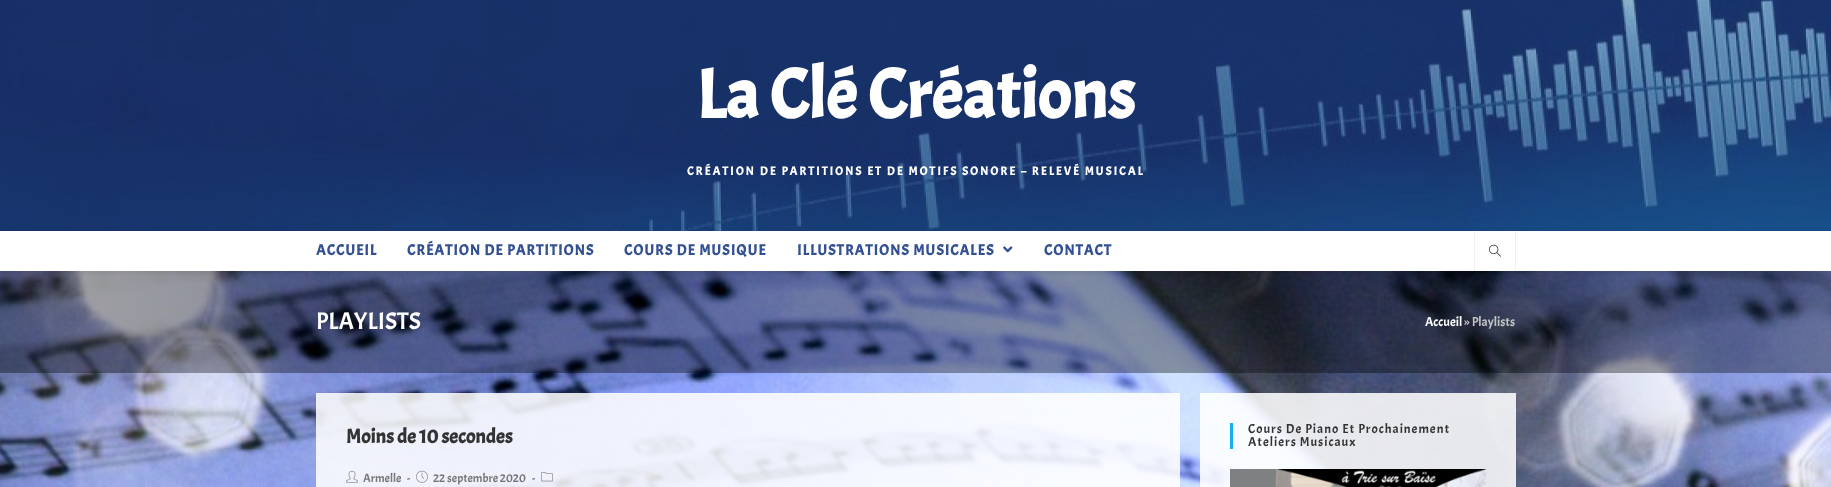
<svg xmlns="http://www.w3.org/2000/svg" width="1831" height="487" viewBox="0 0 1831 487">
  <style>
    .t1 { font: bold 70px Acme; fill: #fff; }
    .t2 { font: bold 12px Acme; letter-spacing: 2px; fill: #fff; }
    .t3 { font: bold 15px Acme; letter-spacing: 1px; fill: #335093; }
    .t4 { font: 24px Acme; fill: #fff; }
    .t5 { font: 13px Acme; fill: #fff; }
    .t6 { font: 13px Acme; fill: #c6c6c6; }
    .t7 { font: bold 20px Acme; fill: #333; }
    .t8 { font: 12px Acme; fill: #777; }
    .t9 { font: 13px Acme; letter-spacing: 1px; fill: #333; }
  </style>
  <rect width="100%" height="100%" fill="#fff"/>
  <image x="0" y="271" width="1831" height="216" href="images/1.png"/>
  <image x="0" y="0" width="1831" height="231" href="images/2.png"/>
  <text x="696" y="118" class="t1">La Clé Créations</text>
  <text x="687" y="175" class="t2">CRÉATION DE PARTITIONS ET DE MOTIFS SONORE – RELEVÉ MUSICAL</text>
  <rect x="0" y="271" width="1831" height="102" fill="#0001025c"/>
  <rect x="0" y="232" width="1831" height="40" fill="#0000001a" filter="blur(2.5px)"/>
  <rect x="0" y="231" width="1831" height="40" fill="#fff"/>
  <text x="316" y="255" class="t3">ACCUEIL</text>
  <text x="407" y="255" class="t3">CRÉATION DE PARTITIONS</text>
  <text x="624" y="255" class="t3">COURS DE MUSIQUE</text>
  <text x="797" y="255" class="t3">ILLUSTRATIONS MUSICALES</text>
  <image x="1003" y="246" width="10" height="7" href="images/3.png"/>
  <text x="1044" y="255" class="t3">CONTACT</text>
  <rect x="1515" y="231" width="1" height="40" fill="#f1f1f1"/>
  <rect x="1474" y="231" width="1" height="40" fill="#f1f1f1"/>
  <image x="1489" y="244" width="12" height="13" href="images/4.png"/>
  <text x="316" y="329" class="t4">PLAYLISTS</text>
  <text x="1425" y="326" class="t5">Accueil</text>
  <text x="1464" y="326" class="t6">» Playlists</text>
  <rect x="316" y="393" width="864" height="94" fill="#ffffffde"/>
  <text x="346" y="443" class="t7">Moins de 10 secondes</text>
  <image x="346" y="470" width="12" height="13" href="images/5.png"/>
  <text x="363" y="482" class="t8">Armelle</text>
  <text x="407" y="482" class="t8">-</text>
  <image x="416" y="470" width="12" height="13" href="images/6.png"/>
  <text x="433" y="482" class="t8">22 septembre 2020</text>
  <text x="532" y="482" class="t8">-</text>
  <image x="541" y="472" width="12" height="10" href="images/7.png"/>
  <rect x="1200" y="393" width="316" height="94" fill="#ffffffde"/>
  <rect x="1230" y="423" width="3" height="26" fill="#13aff0"/>
  <text x="1248" y="433" class="t9">Cours De Piano Et Prochainement</text>
  <text x="1248" y="446" class="t9">Ateliers Musicaux</text>
  <image x="1230" y="469" width="256" height="18" href="images/8.png"/>
</svg>
